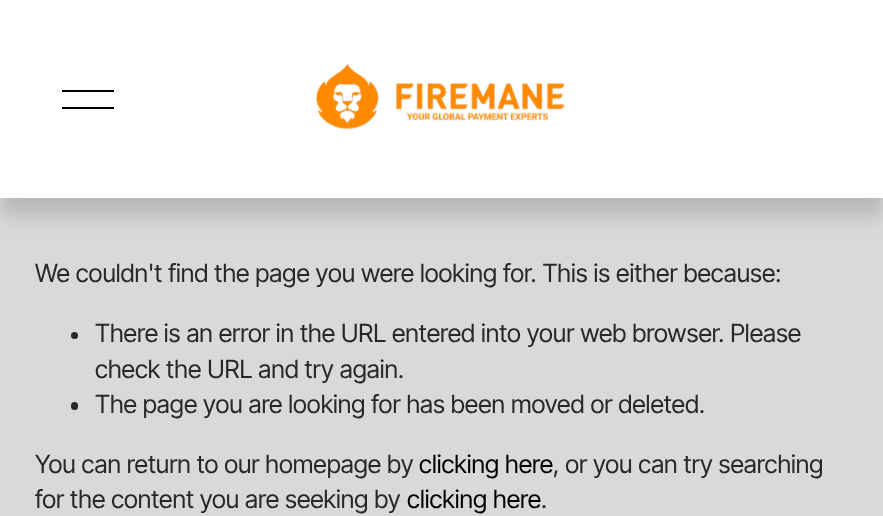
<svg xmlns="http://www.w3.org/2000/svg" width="883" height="516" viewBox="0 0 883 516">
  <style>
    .t1 { font: 25.05px Inter Tight; fill: #282828; }
    .t2 { font: 25.05px Inter Tight; fill: #000; }
  </style>
  <rect width="100%" height="100%" fill="#dad9d9"/>
  <rect x="0" y="18" width="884" height="198" fill="#b9b8b8" filter="blur(9px)"/>
  <rect x="0" y="0" width="883" height="198" fill="#fff"/>
  <rect x="62" y="90" width="52" height="2" fill="#000"/>
  <rect x="62" y="107" width="52" height="2" fill="#000"/>
  <image x="315" y="64" width="250" height="66" href="images/1.png"/>
  <text x="35" y="282" class="t1">We couldn't find the page you were looking for. This is either because:</text>
  <circle cx="74.5" cy="335.5" r="3.5" fill="#282828"/>
  <text x="95" y="342" class="t1">There is an error in the URL entered into your web browser. Please</text>
  <text x="95" y="378" class="t1">check the URL and try again.</text>
  <rect x="71" y="402" width="7" height="8" rx="3.5" fill="#282828"/>
  <text x="95" y="413" class="t1">The page you are looking for has been moved or deleted.</text>
  <text x="35" y="473" class="t1">You can return to our homepage by</text>
  <text x="419" y="473" class="t2">clicking here</text>
  <text x="553" y="473" class="t1">, or you can try searching</text>
  <text x="35" y="508" class="t1">for the content you are seeking by</text>
  <text x="407" y="508" class="t2">clicking here</text>
  <text x="541" y="508" class="t1">.</text>
</svg>
